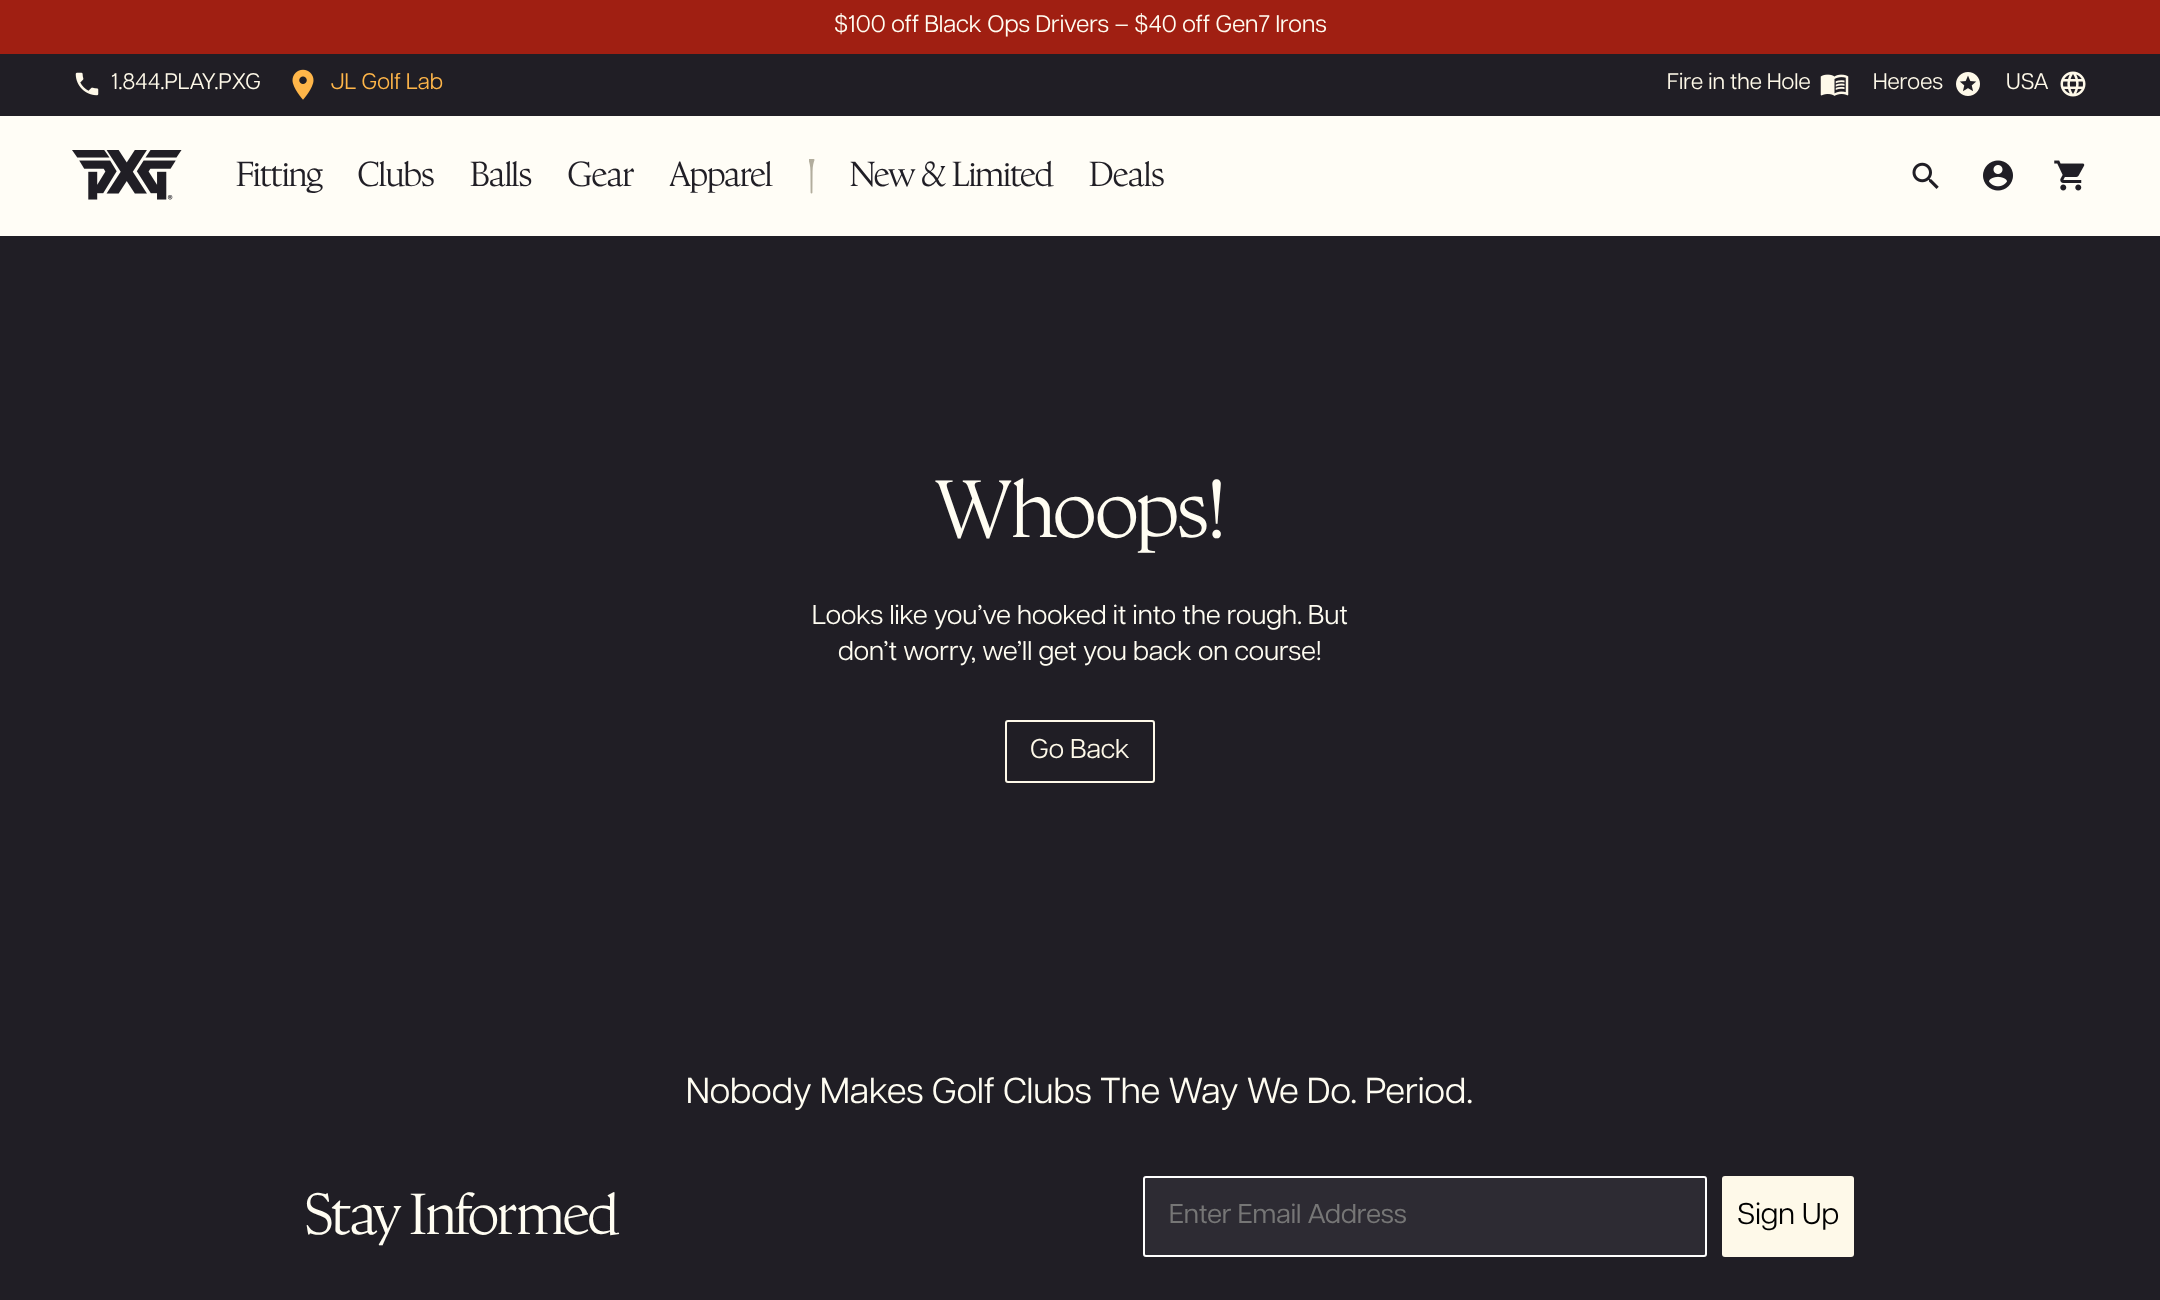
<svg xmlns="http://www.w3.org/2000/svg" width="2160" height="1300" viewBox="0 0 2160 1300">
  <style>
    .t1 { font: 24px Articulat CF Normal; fill: #fffdf2; }
    .t2 { font: 22.5px Articulat CF Normal; fill: #fef9e9; }
    .t3 { font: 22.5px Articulat CF Normal; fill: #ffb649; }
    .t4 { font: 36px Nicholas; fill: #201e25; }
    .t5 { font: 84px Nicholas; fill: #fffdf2; }
    .t6 { font: 27px Articulat CF Normal; fill: #fffdf2; }
    .t7 { font: 27px Articulat CF Normal; fill: #fef9e9; }
    .t8 { font: 36px Articulat CF Normal; fill: #fffdf2; }
    .t9 { font: 60px Nicholas; fill: #fffdf2; }
    .t10 { font: 27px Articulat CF; fill: #767676; }
    .t11 { font: 30px Articulat CF Normal; fill: #000; }
  </style>
  <rect width="100%" height="100%" fill="#fffdf6"/>
  <rect x="0" y="0" width="2160" height="54" fill="#a01f12"/>
  <text x="834" y="32" class="t1">$100 off Black Ops Drivers – $40 off Gen7 Irons</text>
  <rect x="0" y="54" width="2160" height="62" fill="#201e25"/>
  <image x="75" y="72" width="24" height="24" href="images/1.png"/>
  <text x="111" y="89" class="t2">1.844.PLAY.PXG</text>
  <image x="292" y="69" width="22" height="31" href="images/2.png"/>
  <text x="330" y="89" class="t3">JL Golf Lab</text>
  <text x="1667" y="89" class="t2">Fire in the Hole</text>
  <image x="1820" y="74" width="29" height="22" href="images/3.png"/>
  <text x="1873" y="89" class="t2">Heroes</text>
  <image x="1956" y="72" width="24" height="24" href="images/4.png"/>
  <text x="2006" y="89" class="t2">USA</text>
  <image x="2060" y="71" width="26" height="26" href="images/5.png"/>
  <image x="72" y="150" width="110" height="50" href="images/6.png"/>
  <text x="236" y="186" class="t4">Fitting</text>
  <text x="358" y="186" class="t4">Clubs</text>
  <text x="470" y="186" class="t4">Balls</text>
  <text x="568" y="186" class="t4">Gear</text>
  <text x="669" y="186" class="t4">Apparel</text>
  <image x="809" y="159" width="6" height="35" href="images/7.png"/>
  <text x="850" y="186" class="t4">New &amp; Limited</text>
  <text x="1089" y="186" class="t4">Deals</text>
  <image x="1912" y="162" width="27" height="27" href="images/8.png"/>
  <image x="1983" y="160" width="30" height="31" href="images/9.png"/>
  <image x="2054" y="160" width="31" height="31" href="images/10.png"/>
  <rect x="0" y="236" width="2160" height="1064" fill="#201e25"/>
  <text x="934" y="537" class="t5">Whoops!</text>
  <text x="812" y="624" class="t6">Looks like you’ve hooked it into the rough. But</text>
  <text x="838" y="660" class="t6">don’t worry, we’ll get you back on course!</text>
  <rect x="1006" y="721" width="148" height="61" rx="2" fill="none" stroke="#fef9e9" stroke-width="2"/>
  <text x="1030" y="758" class="t7">Go Back</text>
  <text x="686" y="1103" class="t8">Nobody Makes Golf Clubs The Way We Do. Period.</text>
  <text x="306" y="1234" class="t9">Stay Informed</text>
  <rect x="1144" y="1177" width="562" height="79" rx="2" fill="#2d2b33" stroke="#fff" stroke-width="2"/>
  <text x="1169" y="1223" class="t10">Enter Email Address</text>
  <rect x="1722" y="1176" width="132" height="81" rx="3" fill="#fef9e9"/>
  <text x="1737" y="1224" class="t11">Sign Up</text>
</svg>
